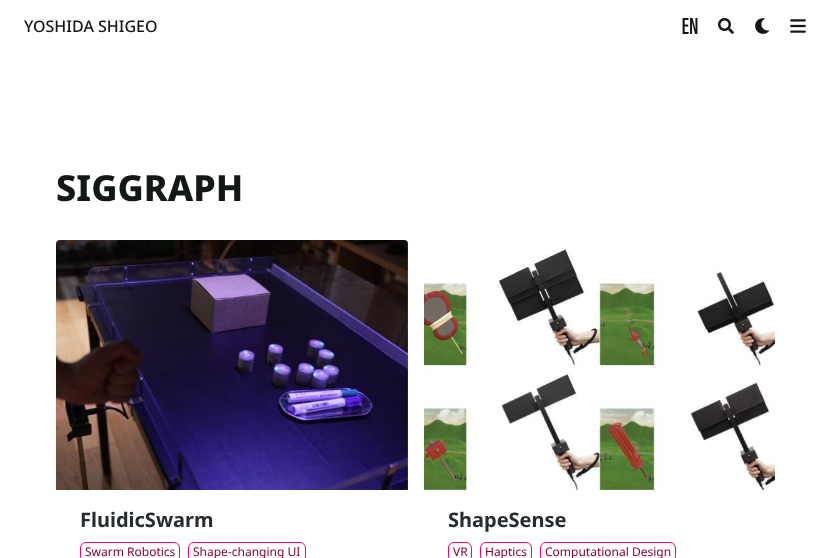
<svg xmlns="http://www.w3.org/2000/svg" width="831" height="558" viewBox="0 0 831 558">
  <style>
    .t1 { font: 500 16px Noto Sans; fill: #131718; }
    .t2 { font: 800 36px Noto Sans; fill: #131718; }
    .t3 { font: bold 20px Noto Sans; fill: #262c2f; }
    .t4 { font: 12px Noto Sans; fill: #850039; }
  </style>
  <rect width="100%" height="100%" fill="#fff"/>
  <text x="24" y="32" class="t1">YOSHIDA SHIGEO</text>
  <image x="682" y="18" width="16" height="16" href="images/1.png"/>
  <image x="718" y="18" width="16" height="16" href="images/2.png"/>
  <image x="755" y="18" width="15" height="16" href="images/3.png"/>
  <image x="790" y="19" width="16" height="14" href="images/4.png"/>
  <text x="56" y="201" class="t2">SIGGRAPH</text>
  <image x="56" y="240" width="352" height="250" href="images/5.png"/>
  <text x="80" y="527" class="t3">FluidicSwarm</text>
  <rect x="80.5" y="542.5" width="99" height="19" rx="5.5" fill="none" stroke="#ff006e"/>
  <text x="85" y="556" class="t4">Swarm Robotics</text>
  <rect x="188.5" y="542.5" width="117" height="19" rx="5.5" fill="none" stroke="#ff006e"/>
  <text x="193" y="556" class="t4">Shape-changing UI</text>
  <image x="424" y="246" width="351" height="244" href="images/6.png"/>
  <text x="448" y="527" class="t3">ShapeSense</text>
  <rect x="448.5" y="542.5" width="23" height="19" rx="5.5" fill="none" stroke="#ff006e"/>
  <text x="453" y="556" class="t4">VR</text>
  <rect x="480.5" y="542.5" width="51" height="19" rx="5.5" fill="none" stroke="#ff006e"/>
  <text x="485" y="556" class="t4">Haptics</text>
  <rect x="540.5" y="542.5" width="135" height="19" rx="5.5" fill="none" stroke="#ff006e"/>
  <text x="545" y="556" class="t4">Computational Design</text>
</svg>
